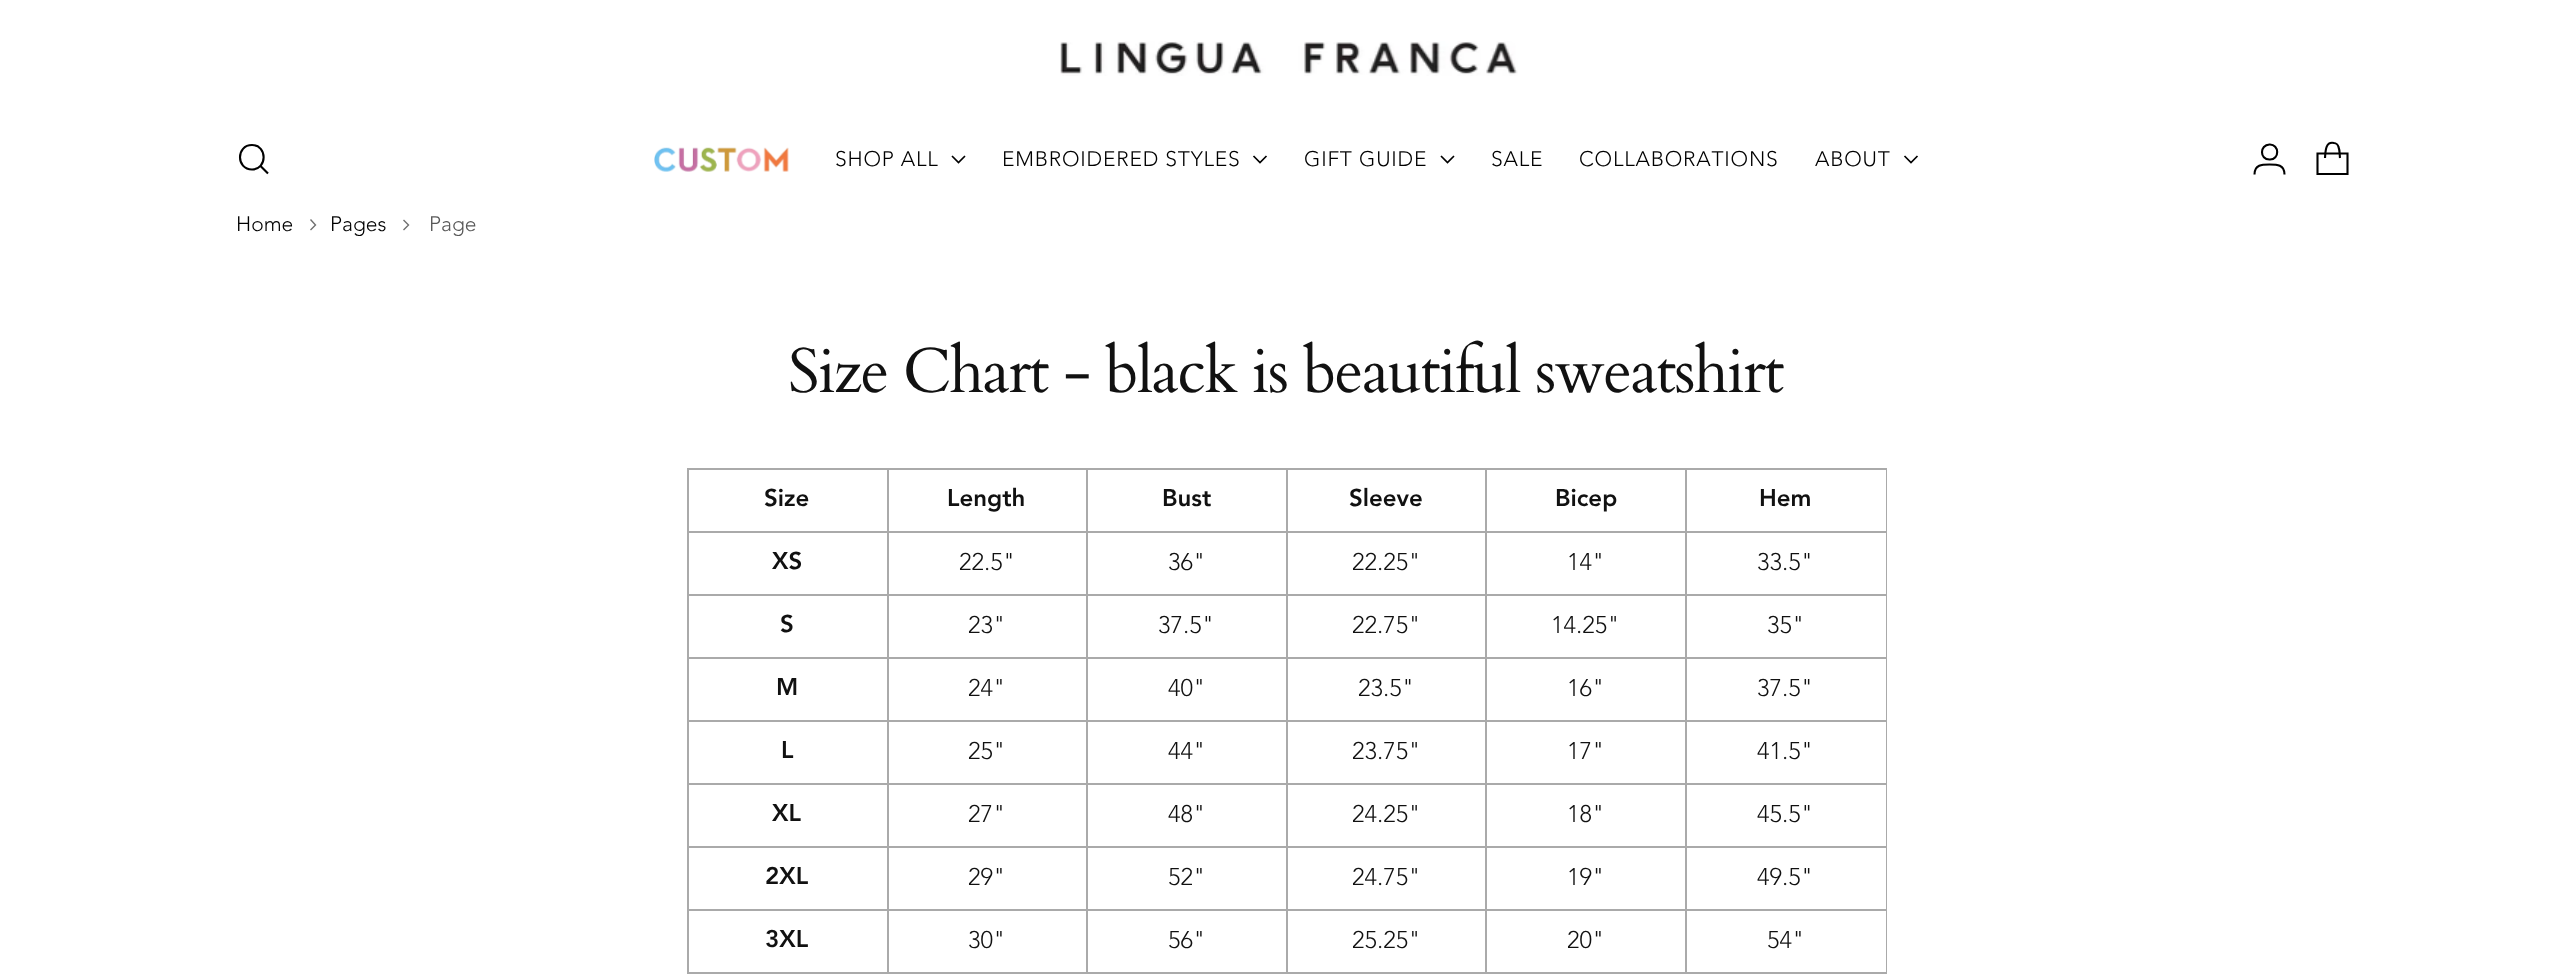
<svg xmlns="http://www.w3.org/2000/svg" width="2572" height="974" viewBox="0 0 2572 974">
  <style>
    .t1 { font: 300 21px Avenir; letter-spacing: 0.8px; fill: #000; }
    .t2 { font: 300 21px Avenir; fill: #000; }
    .t3 { font: 300 21px Avenir; fill: #585858; }
    .t4 { font: 63px Cardo; letter-spacing: -1.6px; fill: #111; }
    .t5 { font: 900 24px Avenir; fill: #111; }
    .t6 { font: 300 24px Avenir; fill: #111; }
  </style>
  <rect width="100%" height="100%" fill="#fff"/>
  <image x="1060" y="41" width="458" height="35" href="images/1.png"/>
  <path d="M252 169.5C267.5 169.5 267.5 145 252 145C236 145 236 169.5 252 169.5Z" fill="none" stroke="#000" stroke-width="2.1" stroke-linecap="round"/>
  <path d="M260.5 166L268 173.5" fill="none" stroke="#000" stroke-width="2.1"/>
  <image x="654" y="147" width="135" height="25" href="images/2.png"/>
  <text x="835" y="166" class="t1">SHOP ALL</text>
  <path d="M952 156L958.5 162.5L965 156" fill="none" stroke="#000" stroke-width="1.7"/>
  <text x="1002" y="166" class="t1">EMBROIDERED STYLES</text>
  <path d="M1253.5 156L1260 162.5L1266.5 156" fill="none" stroke="#000" stroke-width="1.7"/>
  <text x="1304" y="166" class="t1">GIFT GUIDE</text>
  <path d="M1441 156L1447.5 162.5L1454 156" fill="none" stroke="#000" stroke-width="1.7"/>
  <text x="1491" y="166" class="t1">SALE</text>
  <text x="1579" y="166" class="t1">COLLABORATIONS</text>
  <text x="1815" y="166" class="t1">ABOUT</text>
  <path d="M1904.5 156L1911 162.5L1917.5 156" fill="none" stroke="#000" stroke-width="1.7"/>
  <path d="M2269.5 159.5C2280 160 2279.5 144 2269.5 144.5C2259.5 145 2259.5 159.5 2269.5 159.5ZM2254.5 174.5C2254.5 164.5 2262 164.5 2269.5 164.5C2277 164.5 2284.5 164.5 2284.5 174.5" fill="none" stroke="#000" stroke-width="2.1"/>
  <path d="M2340 158C2339.5 154.5 2340 150.5 2338.5 147C2338 145 2336 143 2334 143C2325 141 2325.5 152.5 2325 158" fill="none" stroke="#000" stroke-width="2.1" stroke-linejoin="bevel"/>
  <path d="M2347.5 174V153.5H2317.5V174Z" fill="none" stroke="#000" stroke-width="2.1"/>
  <text x="236" y="231" class="t2">Home</text>
  <path d="M310.5 230L315.5 225L310.5 219.5" fill="none" stroke="#707070" stroke-width="1.4"/>
  <text x="330" y="231" class="t2">Pages</text>
  <path d="M403.5 230L408.5 225L403.5 220" fill="none" stroke="#707070" stroke-width="1.4"/>
  <text x="429" y="231" class="t3">Page</text>
  <text x="788" y="392" class="t4">Size Chart - black is beautiful sweatshirt</text>
  <rect x="1685" y="468" width="202" height="2" fill="#aaa"/>
  <rect x="1685" y="531" width="202" height="2" fill="#aaa"/>
  <rect x="1685" y="594" width="202" height="2" fill="#aaa"/>
  <rect x="1685" y="657" width="202" height="2" fill="#aaa"/>
  <rect x="1685" y="720" width="202" height="2" fill="#aaa"/>
  <rect x="1685" y="783" width="202" height="2" fill="#aaa"/>
  <rect x="1685" y="846" width="202" height="2" fill="#aaa"/>
  <rect x="1685" y="909" width="202" height="2" fill="#aaa"/>
  <rect x="1886" y="909" width="1" height="65" fill="#aaa"/>
  <rect x="1685" y="972" width="202" height="2" fill="#aaa"/>
  <rect x="1685" y="909" width="2" height="65" fill="#aaa"/>
  <rect x="1485" y="909" width="201" height="2" fill="#aaa"/>
  <rect x="1685" y="846" width="2" height="65" fill="#aaa"/>
  <rect x="1485" y="846" width="201" height="2" fill="#aaa"/>
  <rect x="1685" y="783" width="2" height="65" fill="#aaa"/>
  <rect x="1485" y="783" width="201" height="2" fill="#aaa"/>
  <rect x="1685" y="720" width="2" height="65" fill="#aaa"/>
  <rect x="1485" y="720" width="201" height="2" fill="#aaa"/>
  <rect x="1685" y="657" width="2" height="65" fill="#aaa"/>
  <rect x="1485" y="657" width="201" height="2" fill="#aaa"/>
  <rect x="1685" y="594" width="2" height="65" fill="#aaa"/>
  <rect x="1485" y="594" width="201" height="2" fill="#aaa"/>
  <rect x="1685" y="531" width="2" height="65" fill="#aaa"/>
  <rect x="1485" y="531" width="201" height="2" fill="#aaa"/>
  <rect x="1685" y="468" width="2" height="65" fill="#aaa"/>
  <rect x="1485" y="468" width="201" height="2" fill="#aaa"/>
  <rect x="1485" y="972" width="201" height="2" fill="#aaa"/>
  <rect x="1485" y="909" width="2" height="65" fill="#aaa"/>
  <rect x="1286" y="909" width="201" height="2" fill="#aaa"/>
  <rect x="1485" y="846" width="2" height="65" fill="#aaa"/>
  <rect x="1286" y="846" width="201" height="2" fill="#aaa"/>
  <rect x="1485" y="783" width="2" height="65" fill="#aaa"/>
  <rect x="1286" y="783" width="201" height="2" fill="#aaa"/>
  <rect x="1485" y="720" width="2" height="65" fill="#aaa"/>
  <rect x="1286" y="720" width="201" height="2" fill="#aaa"/>
  <rect x="1485" y="657" width="2" height="65" fill="#aaa"/>
  <rect x="1286" y="657" width="201" height="2" fill="#aaa"/>
  <rect x="1485" y="594" width="2" height="65" fill="#aaa"/>
  <rect x="1286" y="594" width="201" height="2" fill="#aaa"/>
  <rect x="1485" y="531" width="2" height="65" fill="#aaa"/>
  <rect x="1286" y="531" width="201" height="2" fill="#aaa"/>
  <rect x="1485" y="468" width="2" height="65" fill="#aaa"/>
  <rect x="1286" y="468" width="201" height="2" fill="#aaa"/>
  <rect x="1286" y="972" width="201" height="2" fill="#aaa"/>
  <rect x="1286" y="909" width="2" height="65" fill="#aaa"/>
  <rect x="1086" y="909" width="201" height="2" fill="#aaa"/>
  <rect x="1286" y="846" width="2" height="65" fill="#aaa"/>
  <rect x="1086" y="846" width="201" height="2" fill="#aaa"/>
  <rect x="1286" y="783" width="2" height="65" fill="#aaa"/>
  <rect x="1086" y="783" width="201" height="2" fill="#aaa"/>
  <rect x="1286" y="720" width="2" height="65" fill="#aaa"/>
  <rect x="1086" y="720" width="201" height="2" fill="#aaa"/>
  <rect x="1286" y="657" width="2" height="65" fill="#aaa"/>
  <rect x="1086" y="657" width="201" height="2" fill="#aaa"/>
  <rect x="1286" y="594" width="2" height="65" fill="#aaa"/>
  <rect x="1086" y="594" width="201" height="2" fill="#aaa"/>
  <rect x="1286" y="531" width="2" height="65" fill="#aaa"/>
  <rect x="1086" y="531" width="201" height="2" fill="#aaa"/>
  <rect x="1286" y="468" width="2" height="65" fill="#aaa"/>
  <rect x="1086" y="468" width="201" height="2" fill="#aaa"/>
  <rect x="1086" y="972" width="201" height="2" fill="#aaa"/>
  <rect x="1086" y="909" width="2" height="65" fill="#aaa"/>
  <rect x="887" y="909" width="201" height="2" fill="#aaa"/>
  <rect x="1086" y="846" width="2" height="65" fill="#aaa"/>
  <rect x="887" y="846" width="201" height="2" fill="#aaa"/>
  <rect x="1086" y="783" width="2" height="65" fill="#aaa"/>
  <rect x="887" y="783" width="201" height="2" fill="#aaa"/>
  <rect x="1086" y="720" width="2" height="65" fill="#aaa"/>
  <rect x="887" y="720" width="201" height="2" fill="#aaa"/>
  <rect x="1086" y="657" width="2" height="65" fill="#aaa"/>
  <rect x="887" y="657" width="201" height="2" fill="#aaa"/>
  <rect x="1086" y="594" width="2" height="65" fill="#aaa"/>
  <rect x="887" y="594" width="201" height="2" fill="#aaa"/>
  <rect x="1086" y="531" width="2" height="65" fill="#aaa"/>
  <rect x="887" y="531" width="201" height="2" fill="#aaa"/>
  <rect x="1086" y="468" width="2" height="65" fill="#aaa"/>
  <rect x="887" y="468" width="201" height="2" fill="#aaa"/>
  <rect x="887" y="972" width="201" height="2" fill="#aaa"/>
  <rect x="887" y="909" width="2" height="65" fill="#aaa"/>
  <rect x="687" y="909" width="201" height="2" fill="#aaa"/>
  <rect x="887" y="846" width="2" height="65" fill="#aaa"/>
  <rect x="687" y="846" width="201" height="2" fill="#aaa"/>
  <rect x="887" y="783" width="2" height="65" fill="#aaa"/>
  <rect x="687" y="783" width="201" height="2" fill="#aaa"/>
  <rect x="887" y="720" width="2" height="65" fill="#aaa"/>
  <rect x="687" y="720" width="201" height="2" fill="#aaa"/>
  <rect x="887" y="657" width="2" height="65" fill="#aaa"/>
  <rect x="687" y="657" width="201" height="2" fill="#aaa"/>
  <rect x="887" y="594" width="2" height="65" fill="#aaa"/>
  <rect x="687" y="594" width="201" height="2" fill="#aaa"/>
  <rect x="887" y="531" width="2" height="65" fill="#aaa"/>
  <rect x="687" y="531" width="201" height="2" fill="#aaa"/>
  <rect x="887" y="468" width="2" height="65" fill="#aaa"/>
  <rect x="687" y="468" width="201" height="2" fill="#aaa"/>
  <rect x="687" y="972" width="201" height="2" fill="#aaa"/>
  <rect x="687" y="909" width="2" height="65" fill="#aaa"/>
  <rect x="687" y="846" width="2" height="65" fill="#aaa"/>
  <rect x="687" y="783" width="2" height="65" fill="#aaa"/>
  <rect x="687" y="720" width="2" height="65" fill="#aaa"/>
  <rect x="687" y="657" width="2" height="65" fill="#aaa"/>
  <rect x="687" y="594" width="2" height="65" fill="#aaa"/>
  <rect x="687" y="531" width="2" height="65" fill="#aaa"/>
  <rect x="687" y="468" width="2" height="65" fill="#aaa"/>
  <text x="764" y="506" class="t5">Size</text>
  <text x="947" y="506" class="t5">Length</text>
  <text x="1162" y="506" class="t5">Bust</text>
  <text x="1349" y="506" class="t5">Sleeve</text>
  <text x="1555" y="506" class="t5">Bicep</text>
  <rect x="1886" y="846" width="1" height="65" fill="#aaa"/>
  <rect x="1886" y="783" width="1" height="65" fill="#aaa"/>
  <rect x="1886" y="720" width="1" height="65" fill="#aaa"/>
  <rect x="1886" y="657" width="1" height="65" fill="#aaa"/>
  <rect x="1886" y="594" width="1" height="65" fill="#aaa"/>
  <rect x="1886" y="531" width="1" height="65" fill="#aaa"/>
  <rect x="1886" y="468" width="1" height="65" fill="#aaa"/>
  <text x="1759" y="506" class="t5">Hem</text>
  <text x="772" y="569" class="t5">XS</text>
  <text x="959" y="570" class="t6">22.5"</text>
  <text x="1168" y="570" class="t6">36"</text>
  <text x="1352" y="570" class="t6">22.25"</text>
  <text x="1567" y="570" class="t6">14"</text>
  <text x="1757" y="570" class="t6">33.5"</text>
  <text x="780" y="632" class="t5">S</text>
  <text x="968" y="633" class="t6">23"</text>
  <text x="1158" y="633" class="t6">37.5"</text>
  <text x="1352" y="633" class="t6">22.75"</text>
  <text x="1551" y="633" class="t6">14.25"</text>
  <text x="1767" y="633" class="t6">35"</text>
  <text x="776" y="695" class="t5">M</text>
  <text x="968" y="696" class="t6">24"</text>
  <text x="1168" y="696" class="t6">40"</text>
  <text x="1358" y="696" class="t6">23.5"</text>
  <text x="1567" y="696" class="t6">16"</text>
  <text x="1757" y="696" class="t6">37.5"</text>
  <text x="781" y="758" class="t5">L</text>
  <text x="968" y="759" class="t6">25"</text>
  <text x="1168" y="759" class="t6">44"</text>
  <text x="1352" y="759" class="t6">23.75"</text>
  <text x="1567" y="759" class="t6">17"</text>
  <text x="1757" y="759" class="t6">41.5"</text>
  <text x="772" y="821" class="t5">XL</text>
  <text x="968" y="822" class="t6">27"</text>
  <text x="1168" y="822" class="t6">48"</text>
  <text x="1352" y="822" class="t6">24.25"</text>
  <text x="1567" y="822" class="t6">18"</text>
  <text x="1757" y="822" class="t6">45.5"</text>
  <text x="765" y="884" class="t5">2XL</text>
  <text x="968" y="885" class="t6">29"</text>
  <text x="1168" y="885" class="t6">52"</text>
  <text x="1352" y="885" class="t6">24.75"</text>
  <text x="1567" y="885" class="t6">19"</text>
  <text x="1757" y="885" class="t6">49.5"</text>
  <text x="765" y="947" class="t5">3XL</text>
  <text x="968" y="948" class="t6">30"</text>
  <text x="1168" y="948" class="t6">56"</text>
  <text x="1352" y="948" class="t6">25.25"</text>
  <text x="1567" y="948" class="t6">20"</text>
  <text x="1767" y="948" class="t6">54"</text>
</svg>
